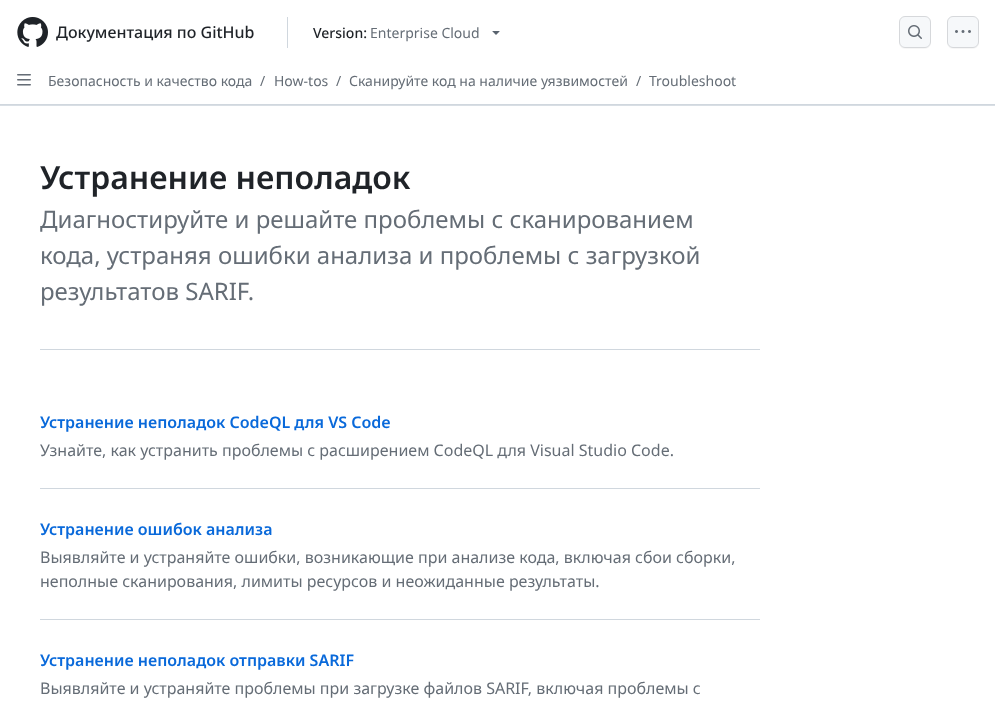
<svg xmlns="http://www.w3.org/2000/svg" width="995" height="713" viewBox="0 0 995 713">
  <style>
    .t1 { font: 500 16px Noto Sans; fill: #1f2328; }
    .t2 { font: 500 14px Noto Sans; fill: #1f2328; }
    .t3 { font: 14px Noto Sans; fill: #656d76; }
    .t4 { font: 600 32px Noto Sans; fill: #1f2328; }
    .t5 { font: 24px Noto Sans; fill: #656d76; }
    .t6 { font: 600 16px Noto Sans; fill: #0969da; }
    .t7 { font: 16px Noto Sans; fill: #656d76; }
  </style>
  <rect width="100%" height="100%" fill="#fff"/>
  <rect x="0" y="105" width="995" height="1" fill="#d8dee4"/>
  <rect x="0" y="104" width="995" height="1" fill="#d0d7de"/>
  <image x="17" y="17" width="31" height="30" href="images/1.png"/>
  <text x="56" y="38" class="t1">Документация по GitHub</text>
  <rect x="287" y="17" width="1" height="31" fill="#d0d7de"/>
  <text x="313" y="38" class="t2">Version:</text>
  <text x="370" y="38" class="t3">Enterprise Cloud</text>
  <image x="492" y="31" width="8" height="4" href="images/2.png"/>
  <path d="M899 42C899 48.5 903 49 908.5 49H921.5C927 49 931 48.5 931 42C931 45.5 928.5 48 925 48H905C901.5 48 899 45.5 899 42Z" fill="#f6f6f6"/>
  <rect x="899.5" y="16.5" width="31" height="31" rx="5.5" fill="#f6f8fa" stroke="#d6d8db"/>
  <image x="908" y="25" width="14" height="14" href="images/3.png"/>
  <path d="M947 42C947 48.5 951 49 956.5 49H969.5C975 49 979 48.5 979 42C979 45.5 976.5 48 973 48H953C949.5 48 947 45.5 947 42Z" fill="#f6f6f6"/>
  <rect x="947.5" y="16.5" width="31" height="31" rx="5.5" fill="#f6f8fa" stroke="#d6d8db"/>
  <image x="955" y="30" width="16" height="3" href="images/4.png"/>
  <image x="17" y="74" width="14" height="12" href="images/5.png"/>
  <text x="48" y="86" class="t3">Безопасность и качество кода</text>
  <text x="260" y="86" class="t3">/</text>
  <text x="274" y="86" class="t3">How-tos</text>
  <text x="336" y="86" class="t3">/</text>
  <text x="349" y="86" class="t3">Сканируйте код на наличие уязвимостей</text>
  <text x="636" y="86" class="t3">/</text>
  <text x="649" y="86" class="t3">Troubleshoot</text>
  <text x="40" y="189" class="t4">Устранение неполадок</text>
  <text x="40" y="228" class="t5">Диагностируйте и решайте проблемы с сканированием</text>
  <text x="40" y="264" class="t5">кода, устраняя ошибки анализа и проблемы с загрузкой</text>
  <text x="40" y="300" class="t5">результатов SARIF.</text>
  <rect x="40" y="349" width="720" height="1" fill="#d0d7de"/>
  <rect x="40" y="488" width="720" height="1" fill="#d0d7de"/>
  <text x="40" y="428" class="t6">Устранение неполадок CodeQL для VS Code</text>
  <text x="40" y="456" class="t7">Узнайте, как устранить проблемы с расширением CodeQL для Visual Studio Code.</text>
  <rect x="40" y="619" width="720" height="1" fill="#d0d7de"/>
  <text x="40" y="535" class="t6">Устранение ошибок анализа</text>
  <text x="40" y="563" class="t7">Выявляйте и устраняйте ошибки, возникающие при анализе кода, включая сбои сборки,</text>
  <text x="40" y="587" class="t7">неполные сканирования, лимиты ресурсов и неожиданные результаты.</text>
  <text x="40" y="666" class="t6">Устранение неполадок отправки SARIF</text>
  <text x="40" y="694" class="t7">Выявляйте и устраняйте проблемы при загрузке файлов SARIF, включая проблемы с</text>
</svg>
